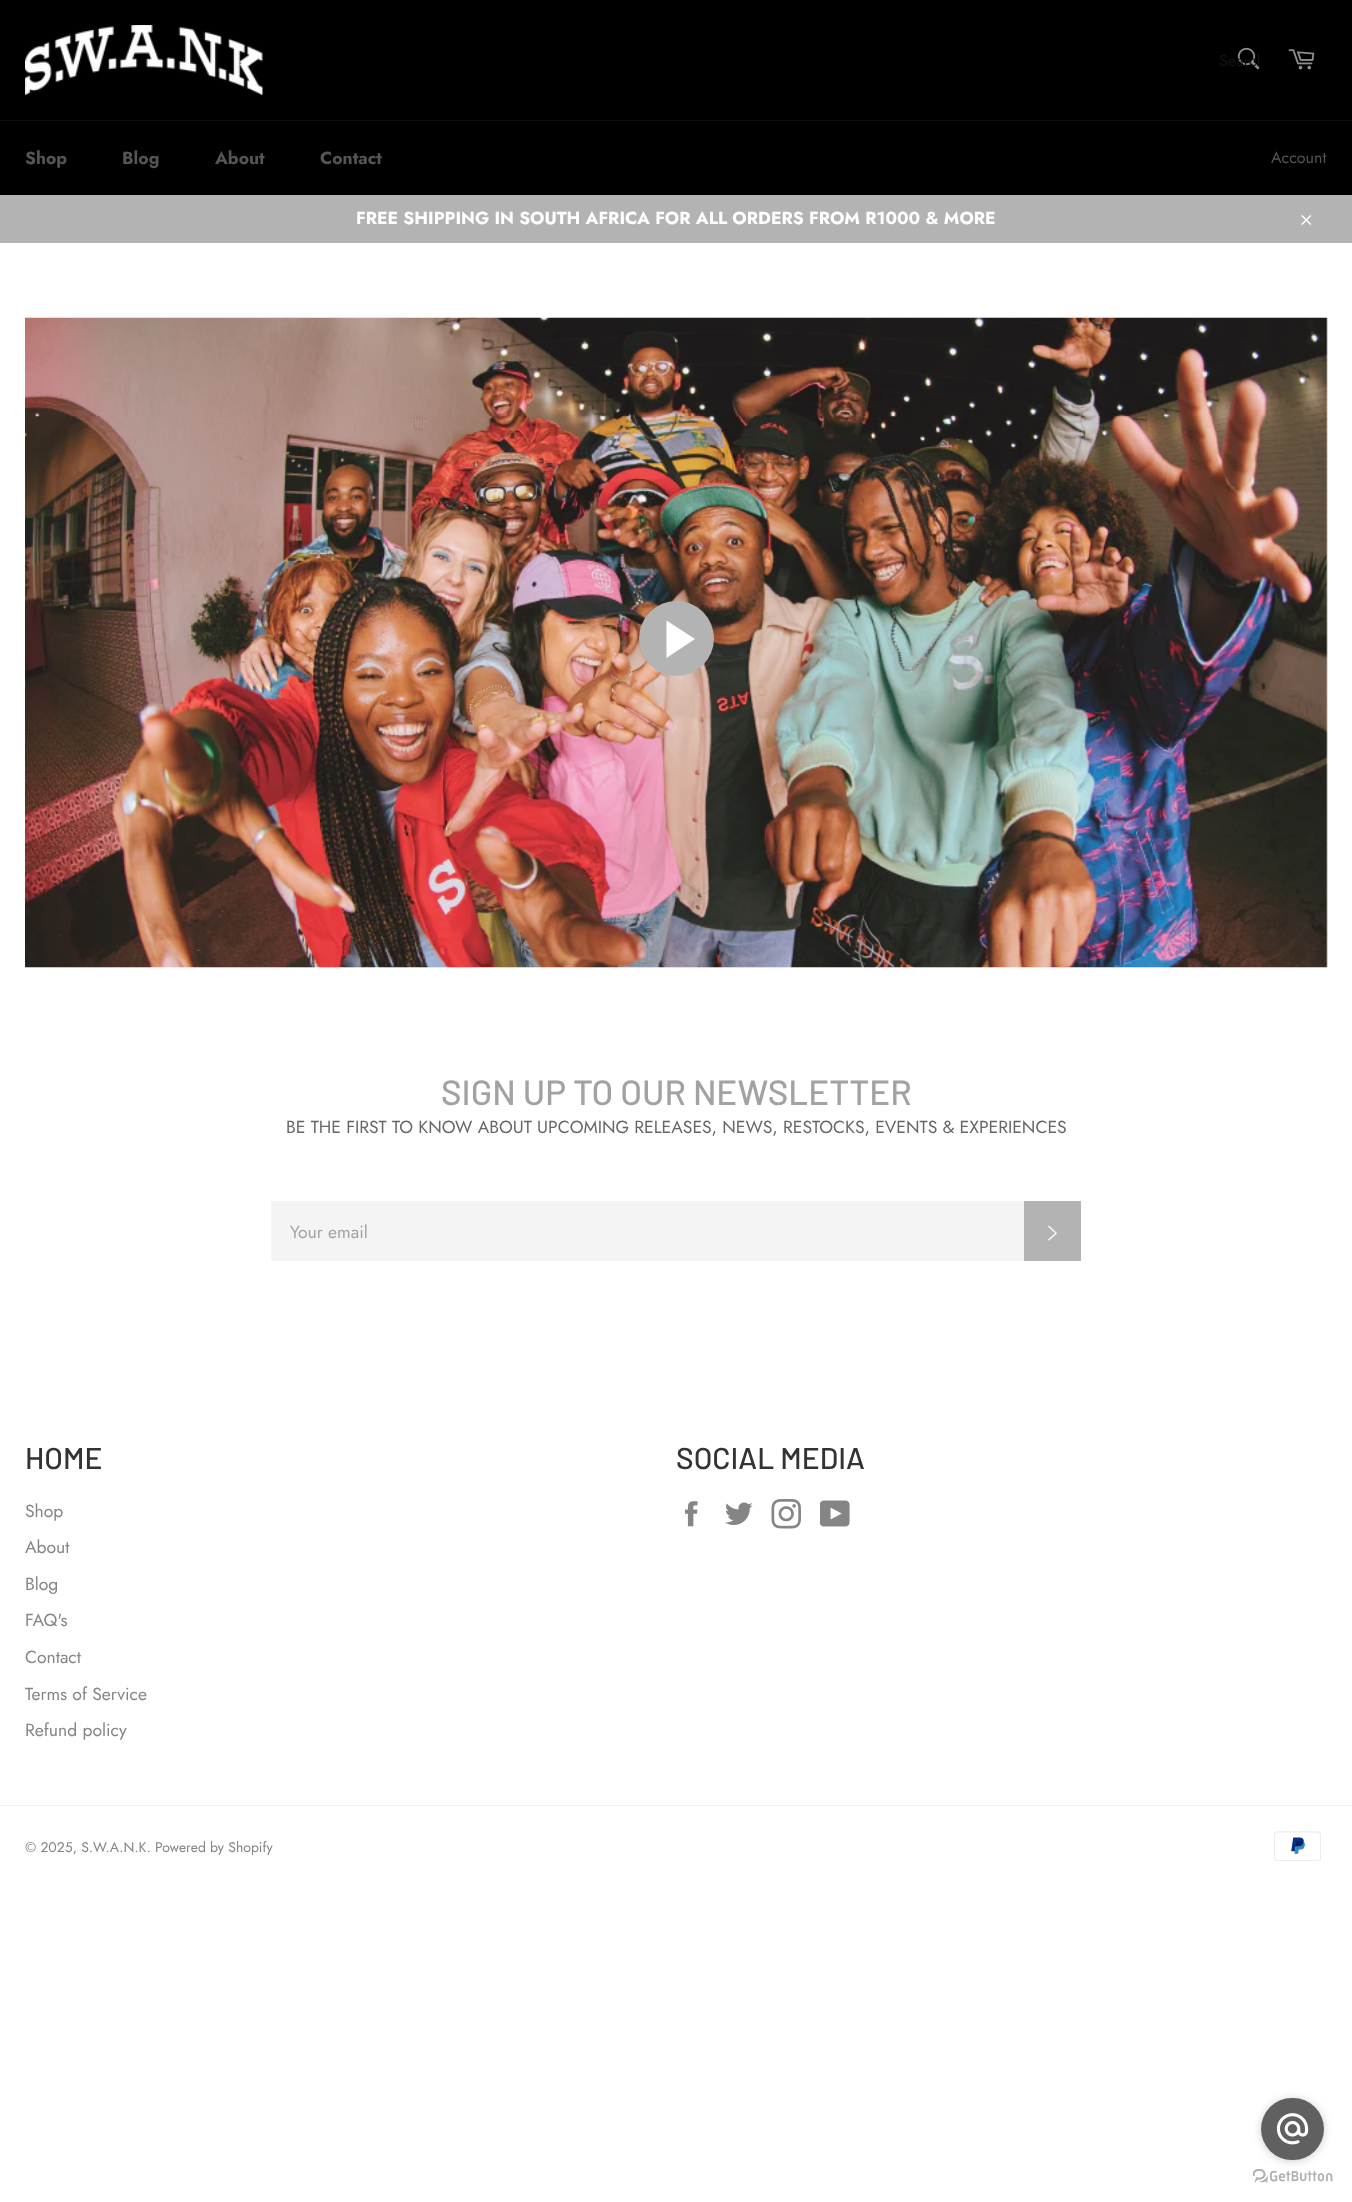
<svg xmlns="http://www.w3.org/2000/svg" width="1352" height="2202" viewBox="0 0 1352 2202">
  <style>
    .t1 { font: 16px Jost; fill: #131313; }
    .t2 { font: bold 17.5px Jost; fill: #555; }
    .t3 { font: 16px Jost; fill: #555; }
    .t4 { font: bold 17.5px Jost; fill: #fff; }
    .t5 { font: 500 35px Barlow; fill: #a2a2a2; }
    .t6 { font: 17.5px Jost; fill: #666; }
    .t7 { font: 17.5px Jost; fill: #a2a2a2; }
    .t8 { font: 500 30px Barlow; fill: #333; }
    .t9 { font: 17.5px Jost; fill: #858585; }
    .t10 { font: 14px Jost; fill: #858585; }
  </style>
  <defs>
    <clipPath id="clip1"><rect x="1219" y="49" width="40" height="24"/></clipPath>
  </defs>
  <rect width="100%" height="100%" fill="#fff"/>
  <rect x="25" y="318" width="1303" height="650" fill="#fdf9f9"/>
  <rect x="0" y="0" width="1352" height="120" fill="#000"/>
  <image x="25" y="25" width="238" height="70" href="images/1.png"/>
  <image x="1237" y="47" width="23" height="23" href="images/2.png"/>
  <g clip-path="url(#clip1)">
    <text x="1219" y="66" class="t1">Search</text>
  </g>
  <image x="1288" y="49" width="27" height="21" href="images/3.png"/>
  <rect x="0" y="121" width="1352" height="74" fill="#000"/>
  <rect x="0" y="120" width="1352" height="1" fill="#0d0d0d"/>
  <text x="25" y="164" class="t2">Shop</text>
  <text x="122" y="164" class="t2">Blog</text>
  <text x="215" y="164" class="t2">About</text>
  <text x="320" y="164" class="t2">Contact</text>
  <text x="1271" y="163" class="t3">Account</text>
  <rect x="0" y="195" width="1352" height="48" fill="#b4b3b3"/>
  <text x="356" y="224" class="t4">FREE SHIPPING IN SOUTH AFRICA FOR ALL ORDERS FROM R1000 &amp; MORE</text>
  <image x="1301" y="215" width="11" height="10" href="images/4.png"/>
  <image x="25" y="317" width="1303" height="651" href="images/5.png"/>
  <circle cx="676.5" cy="638.5" r="37.5" fill="#b4b3b3"/>
  <path d="M666.5 658V620.5L695 639Z" fill="#fff"/>
  <text x="441" y="1105" class="t5">SIGN UP TO OUR NEWSLETTER</text>
  <text x="286" y="1133" class="t6">BE THE FIRST TO KNOW ABOUT UPCOMING RELEASES, NEWS, RESTOCKS, EVENTS &amp; EXPERIENCES</text>
  <rect x="271" y="1201" width="753" height="60" fill="#f4f4f4"/>
  <text x="290" y="1238" class="t7">Your email</text>
  <rect x="1024" y="1201" width="57" height="60" fill="#b4b3b3"/>
  <image x="1048" y="1225" width="9" height="16" href="images/6.png"/>
  <text x="25" y="1469" class="t8">HOME</text>
  <text x="25" y="1517" class="t9">Shop</text>
  <text x="25" y="1553" class="t9">About</text>
  <text x="25" y="1590" class="t9">Blog</text>
  <text x="25" y="1626" class="t9">FAQ's</text>
  <text x="25" y="1663" class="t9">Contact</text>
  <text x="25" y="1700" class="t9">Terms of Service</text>
  <text x="25" y="1736" class="t9">Refund policy</text>
  <text x="676" y="1469" class="t8">SOCIAL MEDIA</text>
  <image x="685" y="1501" width="13" height="26" href="images/7.png"/>
  <image x="725" y="1502" width="28" height="23" href="images/8.png"/>
  <image x="771" y="1499" width="30" height="30" href="images/9.png"/>
  <image x="820" y="1500" width="30" height="27" href="images/10.png"/>
  <rect x="0" y="1805" width="1352" height="1" fill="#f2f2f2"/>
  <text x="25" y="1852" class="t10">© 2025, S.W.A.N.K. Powered by Shopify</text>
  <image x="1274" y="1831" width="47" height="30" href="images/11.png"/>
  <image x="1253" y="2169" width="80" height="14" href="images/13.png"/>
  <rect x="1261" y="2099" width="63" height="62" rx="31" fill="#88888866" filter="blur(4.5px)"/>
  <rect x="1261" y="2098" width="63" height="62" rx="31" fill="#606060"/>
  <image x="1276" y="2113" width="33" height="32" href="images/12.png"/>
</svg>
